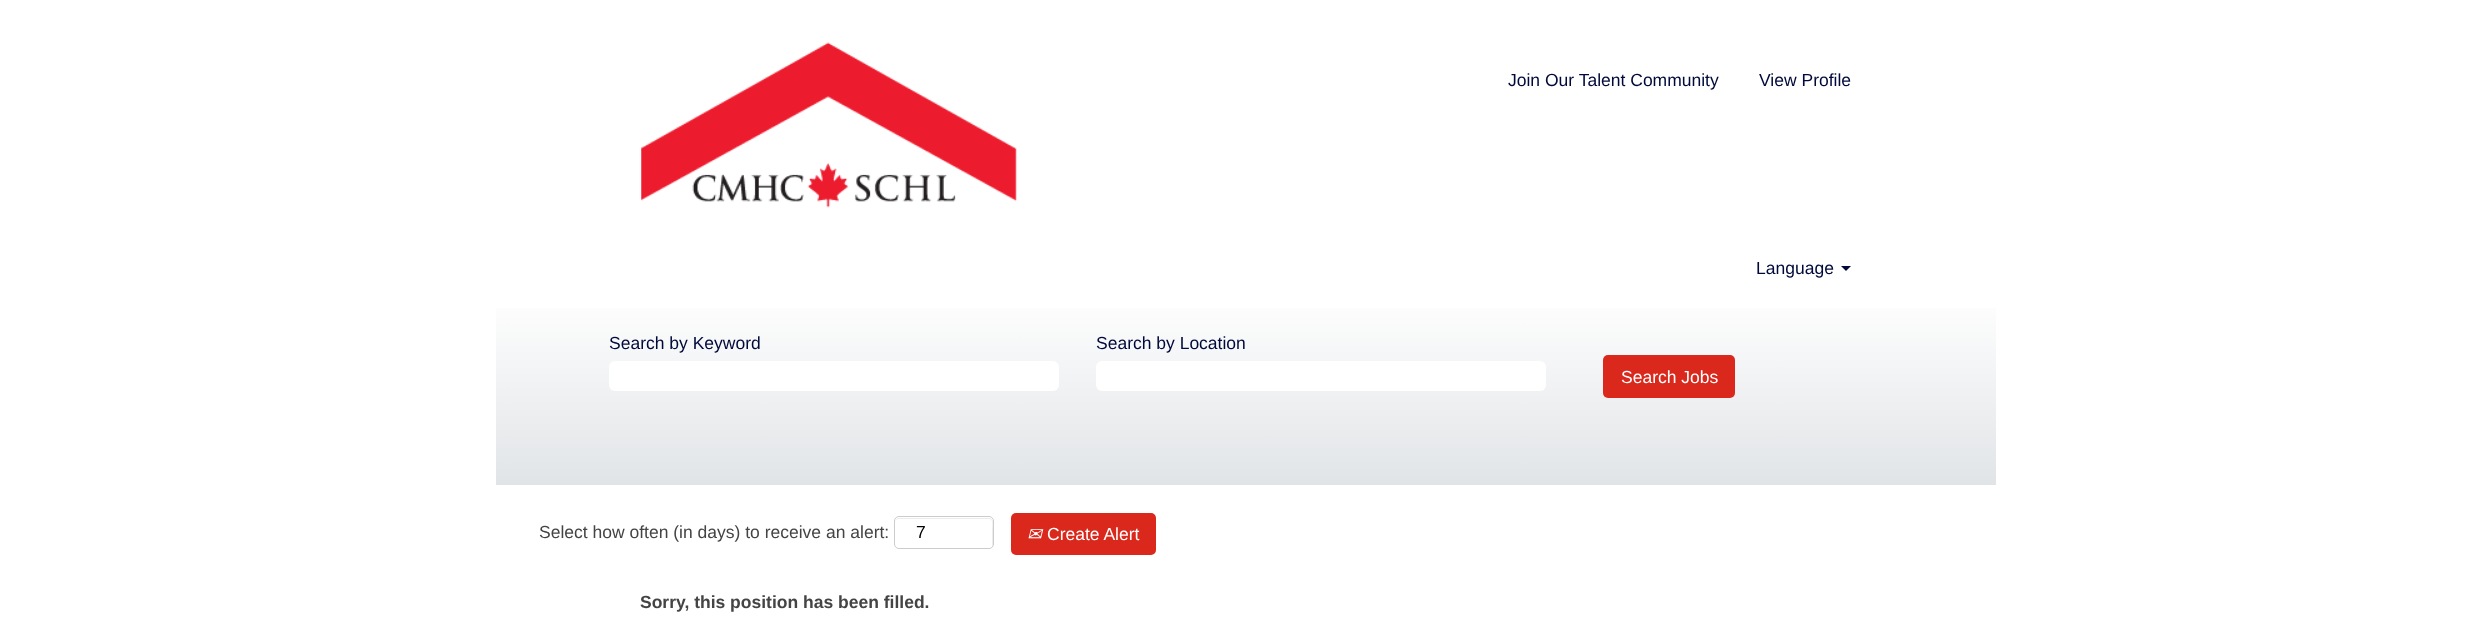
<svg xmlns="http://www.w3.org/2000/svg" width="2492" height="630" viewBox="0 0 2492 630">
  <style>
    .t1 { font: 17.5px Liberation Sans; fill: #00093a; }
    .t2 { font: 17.5px Liberation Sans; fill: #fff; }
    .t3 { font: 17.5px Liberation Sans; fill: #444; }
    .t4 { font: 17.5px Liberation Sans; fill: #000; }
    .t5 { font: italic 17.5px DejaVu Sans; fill: #fff; }
    .t6 { font: bold 17.5px Liberation Sans; fill: #444; }
  </style>
  <defs>
    <linearGradient id="g1" gradientUnits="userSpaceOnUse" x1="1246" y1="292" x2="1246" y2="485"><stop offset="0" stop-color="#fff"/><stop offset="1" stop-color="#e1e4e7"/></linearGradient>
  </defs>
  <rect width="100%" height="100%" fill="#fff"/>
  <image x="641" y="42" width="376" height="166" href="images/1.png"/>
  <text x="1508" y="86" class="t1">Join Our Talent Community</text>
  <text x="1759" y="86" class="t1">View Profile</text>
  <text x="1756" y="274" class="t1">Language</text>
  <path d="M1841 266H1851L1846 271Z" fill="#00093a"/>
  <rect x="496" y="308" width="1500" height="177" fill="url(#g1)"/>
  <text x="609" y="349" class="t1">Search by Keyword</text>
  <rect x="609" y="361" width="450" height="30" rx="6" fill="#fff"/>
  <text x="1096" y="349" class="t1">Search by Location</text>
  <rect x="1096" y="361" width="450" height="30" rx="6" fill="#fff"/>
  <rect x="1603" y="355" width="132" height="43" rx="5" fill="#da291c"/>
  <text x="1621" y="383" class="t2">Search Jobs</text>
  <text x="539" y="538" class="t3">Select how often (in days) to receive an alert:</text>
  <path d="M899 519H989C994 519 992 527 992 530V547C992 546 993 545 993 544V522C993 520 991 518 989 518H899C897 518 895 520 895 522C895 520 897 519 899 519Z" fill="#ececec"/>
  <rect x="894.5" y="516.5" width="99" height="32" rx="4.5" fill="none" stroke="#ccc"/>
  <text x="916" y="538" class="t4">7</text>
  <rect x="1011" y="513" width="145" height="42" rx="5" fill="#da291c"/>
  <text x="1027" y="540" class="t5">✉</text>
  <text x="1047" y="540" class="t2">Create Alert</text>
  <text x="640" y="608" class="t6">Sorry, this position has been filled.</text>
</svg>
